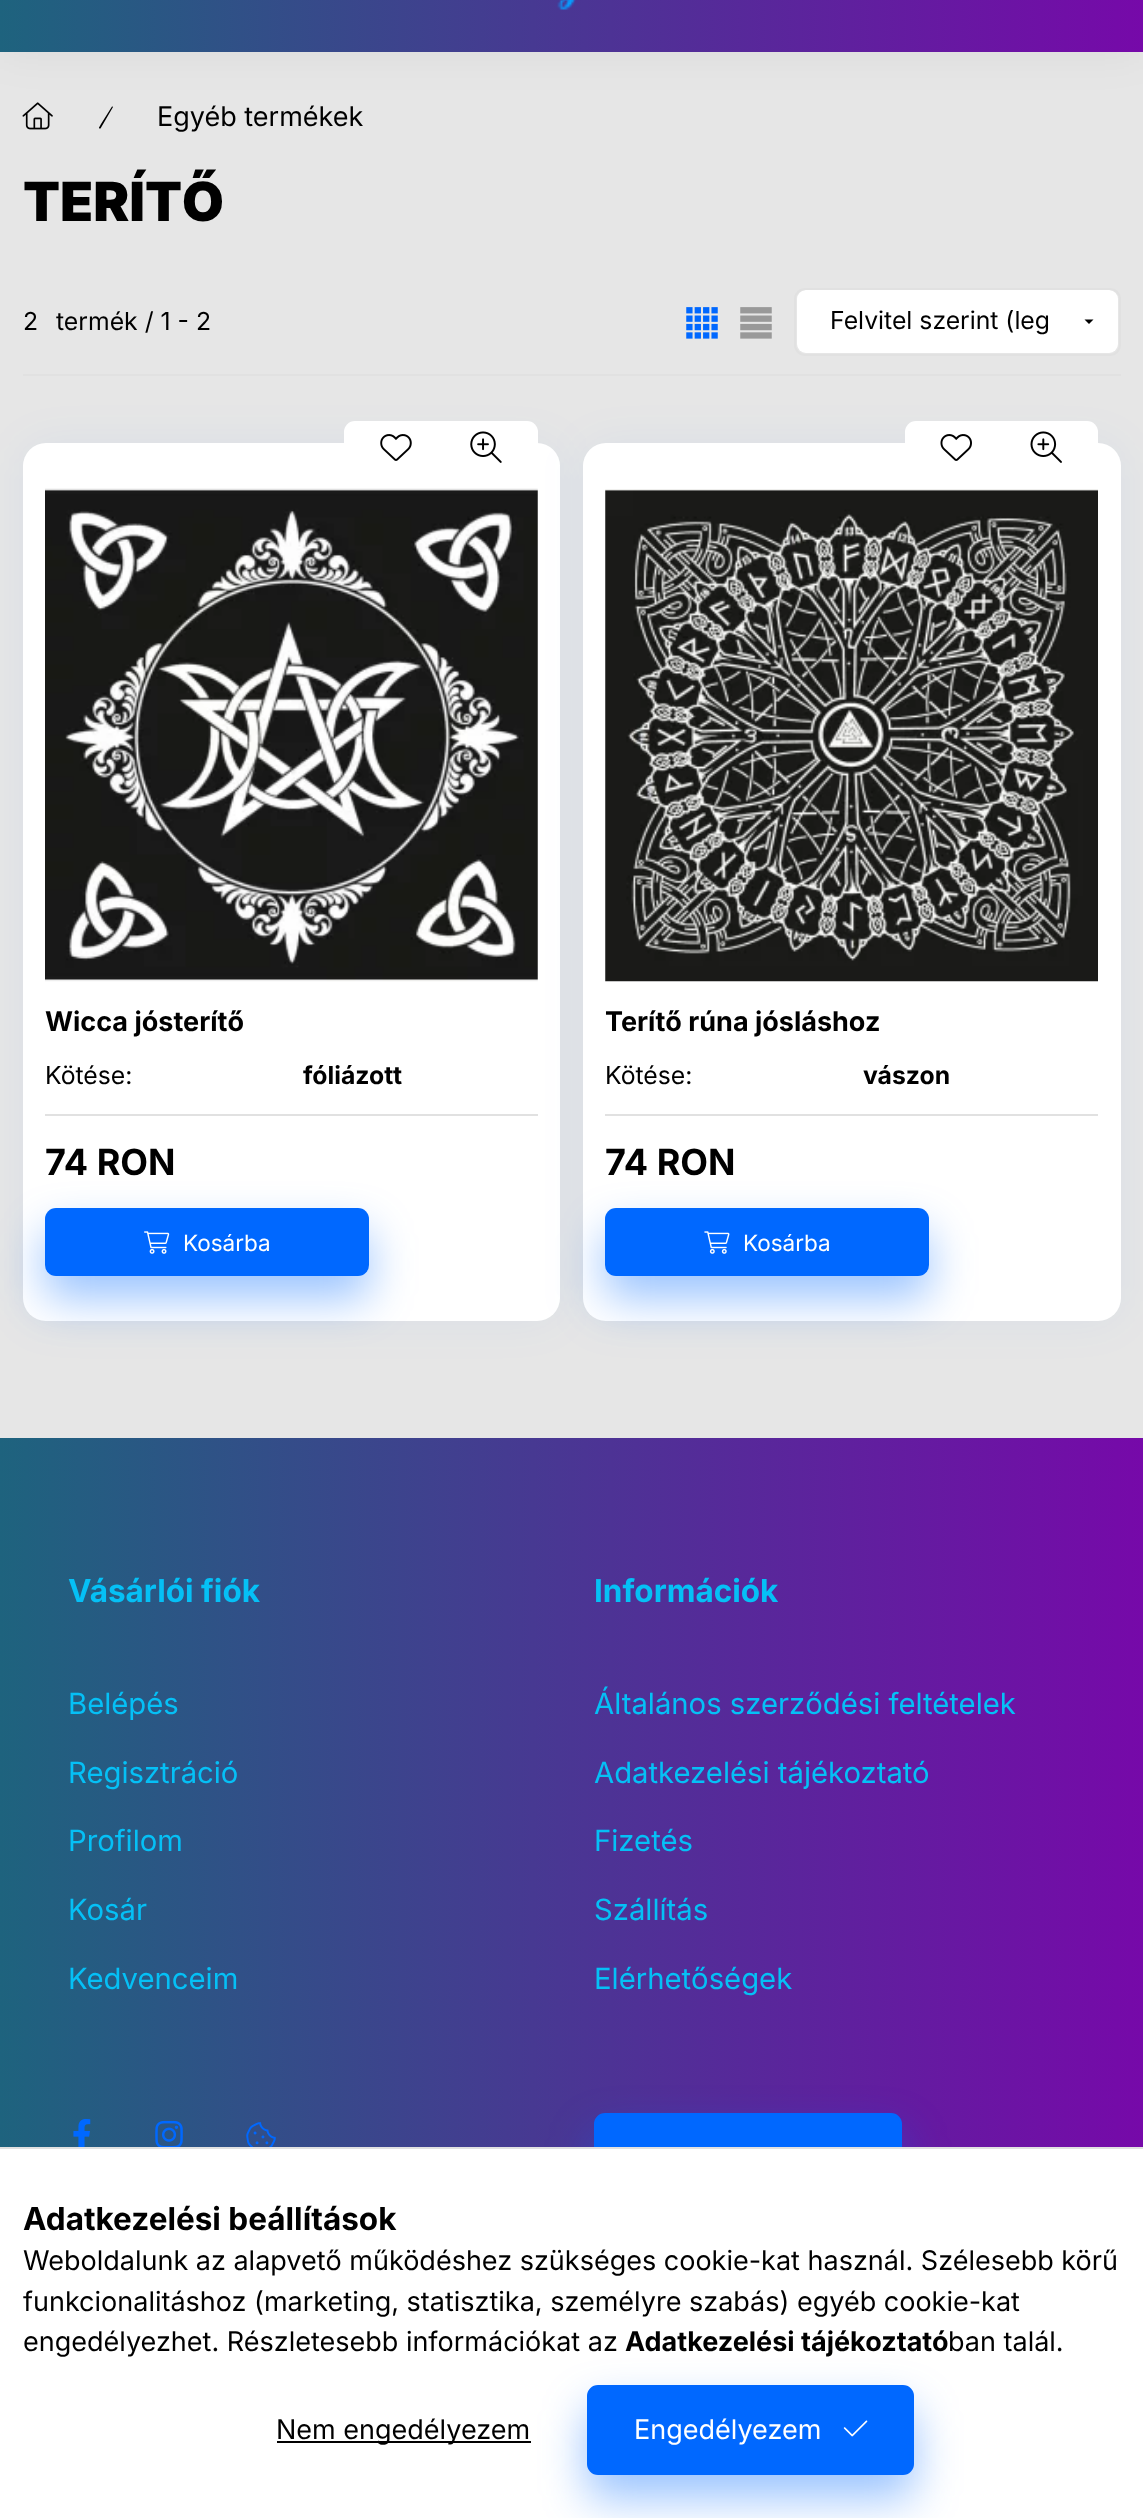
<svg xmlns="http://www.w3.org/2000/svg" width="1143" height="2518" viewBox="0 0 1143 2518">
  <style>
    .t1 { font: 27px Inter; fill: #000; }
    .t2 { font: 900 54px Inter; fill: #000; }
    .t3 { font: 24.75px Inter; fill: #000; }
    .t4 { font: bold 27px Inter; fill: #000; }
    .t5 { font: bold 24.75px Inter; fill: #000; }
    .t6 { font: bold 36px Inter; fill: #000; }
    .t7 { font: 22.5px Inter; fill: #fff; }
    .t8 { font: bold 31.5px Inter; fill: #05c0f6; }
    .t9 { font: 29.25px Inter; fill: #05c0f6; }
    .t10 { font: bold 31.5px Inter; fill: #000; }
    .t11 { font: 27px Inter; fill: #fff; }
  </style>
  <defs>
    <linearGradient id="g1" gradientUnits="userSpaceOnUse" x1="0" y1="1260" x2="1143" y2="1260"><stop offset="0" stop-color="#1e637e"/><stop offset="1" stop-color="#7609a9"/></linearGradient>
  </defs>
  <rect width="100%" height="100%" fill="#e6e6e6"/>
  <image x="22" y="102" width="31" height="28" href="images/2.png"/>
  <path d="M112.5 106.5H112L101 124C100.5 125.5 98 128 99.5 128.5H100.5L113 107Z" fill="#000"/>
  <rect x="0" y="-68" width="1143" height="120" fill="#0000000d" filter="blur(22.5px)"/>
  <rect x="0" y="0" width="1143" height="52" fill="url(#g1)"/>
  <image x="557" y="0" width="19" height="10" href="images/1.png"/>
  <text x="157" y="126" class="t1">Egyéb termékek</text>
  <text x="23" y="221" class="t2">TERÍTŐ</text>
  <rect x="23" y="374" width="1098" height="2" fill="#e1e1e1"/>
  <text x="23" y="330" class="t3">2</text>
  <text x="56" y="330" class="t3">termék / 1 - 2</text>
  <image x="686" y="307" width="32" height="32" href="images/3.png"/>
  <image x="740" y="307" width="32" height="32" href="images/4.png"/>
  <rect x="797" y="290" width="321" height="63" rx="9" fill="#fff"/>
  <rect x="795" y="289" width="325" height="66" rx="10" fill="none" stroke="#e1e1e1" stroke-width="2"/>
  <text x="830" y="329" class="t3">Felvitel szerint (leg</text>
  <path d="M1084.5 319.5H1093.5L1089 324Z" fill="#000"/>
  <rect x="23" y="443" width="537" height="878" rx="23" fill="#0068ff0d" filter="blur(22.5px)"/>
  <rect x="23" y="443" width="537" height="878" rx="23" fill="#fff"/>
  <image x="45" y="488" width="493" height="494" href="images/7.png"/>
  <rect x="583" y="443" width="538" height="878" rx="23" fill="#0068ff0d" filter="blur(22.5px)"/>
  <rect x="344" y="421" width="194" height="54" rx="11" fill="#fff"/>
  <image x="380" y="434" width="32" height="27" href="images/5.png"/>
  <image x="470" y="431" width="32" height="32" href="images/6.png"/>
  <text x="45" y="1031" class="t4">Wicca jósterítő</text>
  <text x="45" y="1084" class="t3">Kötése:</text>
  <text x="303" y="1084" class="t5">fóliázott</text>
  <rect x="45" y="1114" width="493" height="2" fill="#e1e1e1"/>
  <rect x="45" y="1231" width="324" height="67" rx="11" fill="#0068ff66" filter="blur(22.5px)"/>
  <text x="45" y="1175" class="t6">74 RON</text>
  <rect x="45" y="1208" width="324" height="68" rx="11" fill="#0068ff"/>
  <image x="144" y="1231" width="26" height="23" href="images/8.png"/>
  <text x="183" y="1251" class="t7">Kosárba</text>
  <rect x="583" y="443" width="538" height="878" rx="23" fill="#fff"/>
  <rect x="905" y="421" width="193" height="54" rx="11" fill="#fff"/>
  <image x="940" y="434" width="32" height="27" href="images/9.png"/>
  <image x="1030" y="431" width="32" height="32" href="images/10.png"/>
  <image x="605" y="489" width="493" height="493" href="images/11.png"/>
  <text x="605" y="1031" class="t4">Terítő rúna jósláshoz</text>
  <text x="605" y="1084" class="t3">Kötése:</text>
  <text x="863" y="1084" class="t5">vászon</text>
  <rect x="605" y="1114" width="493" height="2" fill="#e1e1e1"/>
  <rect x="605" y="1231" width="324" height="67" rx="11" fill="#0068ff66" filter="blur(22.5px)"/>
  <text x="605" y="1175" class="t6">74 RON</text>
  <rect x="605" y="1208" width="324" height="68" rx="11" fill="#0068ff"/>
  <image x="704" y="1231" width="26" height="23" href="images/12.png"/>
  <text x="743" y="1251" class="t7">Kosárba</text>
  <rect x="0" y="1438" width="1143" height="709" fill="url(#g1)"/>
  <text x="68" y="1602" class="t8">Vásárlói fiók</text>
  <text x="68" y="1714" class="t9">Belépés</text>
  <text x="68" y="1783" class="t9">Regisztráció</text>
  <text x="68" y="1851" class="t9">Profilom</text>
  <text x="68" y="1920" class="t9">Kosár</text>
  <text x="68" y="1989" class="t9">Kedvenceim</text>
  <text x="594" y="1602" class="t8">Információk</text>
  <text x="594" y="1714" class="t9">Általános szerződési feltételek</text>
  <text x="594" y="1783" class="t9">Adatkezelési tájékoztató</text>
  <text x="594" y="1851" class="t9">Fizetés</text>
  <text x="594" y="1920" class="t9">Szállítás</text>
  <text x="594" y="1989" class="t9">Elérhetőségek</text>
  <image x="73" y="2118" width="18" height="29" href="images/13.png"/>
  <image x="155" y="2120" width="28" height="27" href="images/14.png"/>
  <image x="246" y="2122" width="30" height="25" href="images/15.png"/>
  <rect x="594" y="2135" width="308" height="95" rx="11" fill="#0068ff66" filter="blur(22.5px)"/>
  <rect x="595" y="2114" width="306" height="92" rx="10" fill="#0068ff" stroke="#0068ff" stroke-width="2"/>
  <rect x="0" y="2149" width="1143" height="369" fill="#fff"/>
  <rect x="0" y="2147" width="1143" height="2" fill="#e1e1e1"/>
  <text x="23" y="2230" class="t10">Adatkezelési beállítások</text>
  <text x="23" y="2270" class="t1">Weboldalunk az alapvető működéshez szükséges cookie-kat használ. Szélesebb körű</text>
  <text x="23" y="2311" class="t1">funkcionalitáshoz (marketing, statisztika, személyre szabás) egyéb cookie-kat</text>
  <text x="23" y="2351" class="t1">engedélyezhet. Részletesebb információkat az</text>
  <text x="625" y="2351" class="t4">Adatkezelési tájékoztató</text>
  <text x="948" y="2351" class="t1">ban talál.</text>
  <rect x="277" y="2441" width="254" height="2" fill="#000"/>
  <text x="276" y="2439" class="t1">Nem engedélyezem</text>
  <rect x="587" y="2408" width="327" height="90" rx="11" fill="#0068ff66" filter="blur(22.5px)"/>
  <rect x="588" y="2386" width="325" height="88" rx="10" fill="#0068ff" stroke="#0068ff" stroke-width="2"/>
  <text x="634" y="2439" class="t11">Engedélyezem</text>
  <image x="843" y="2420" width="25" height="17" href="images/16.png"/>
</svg>
